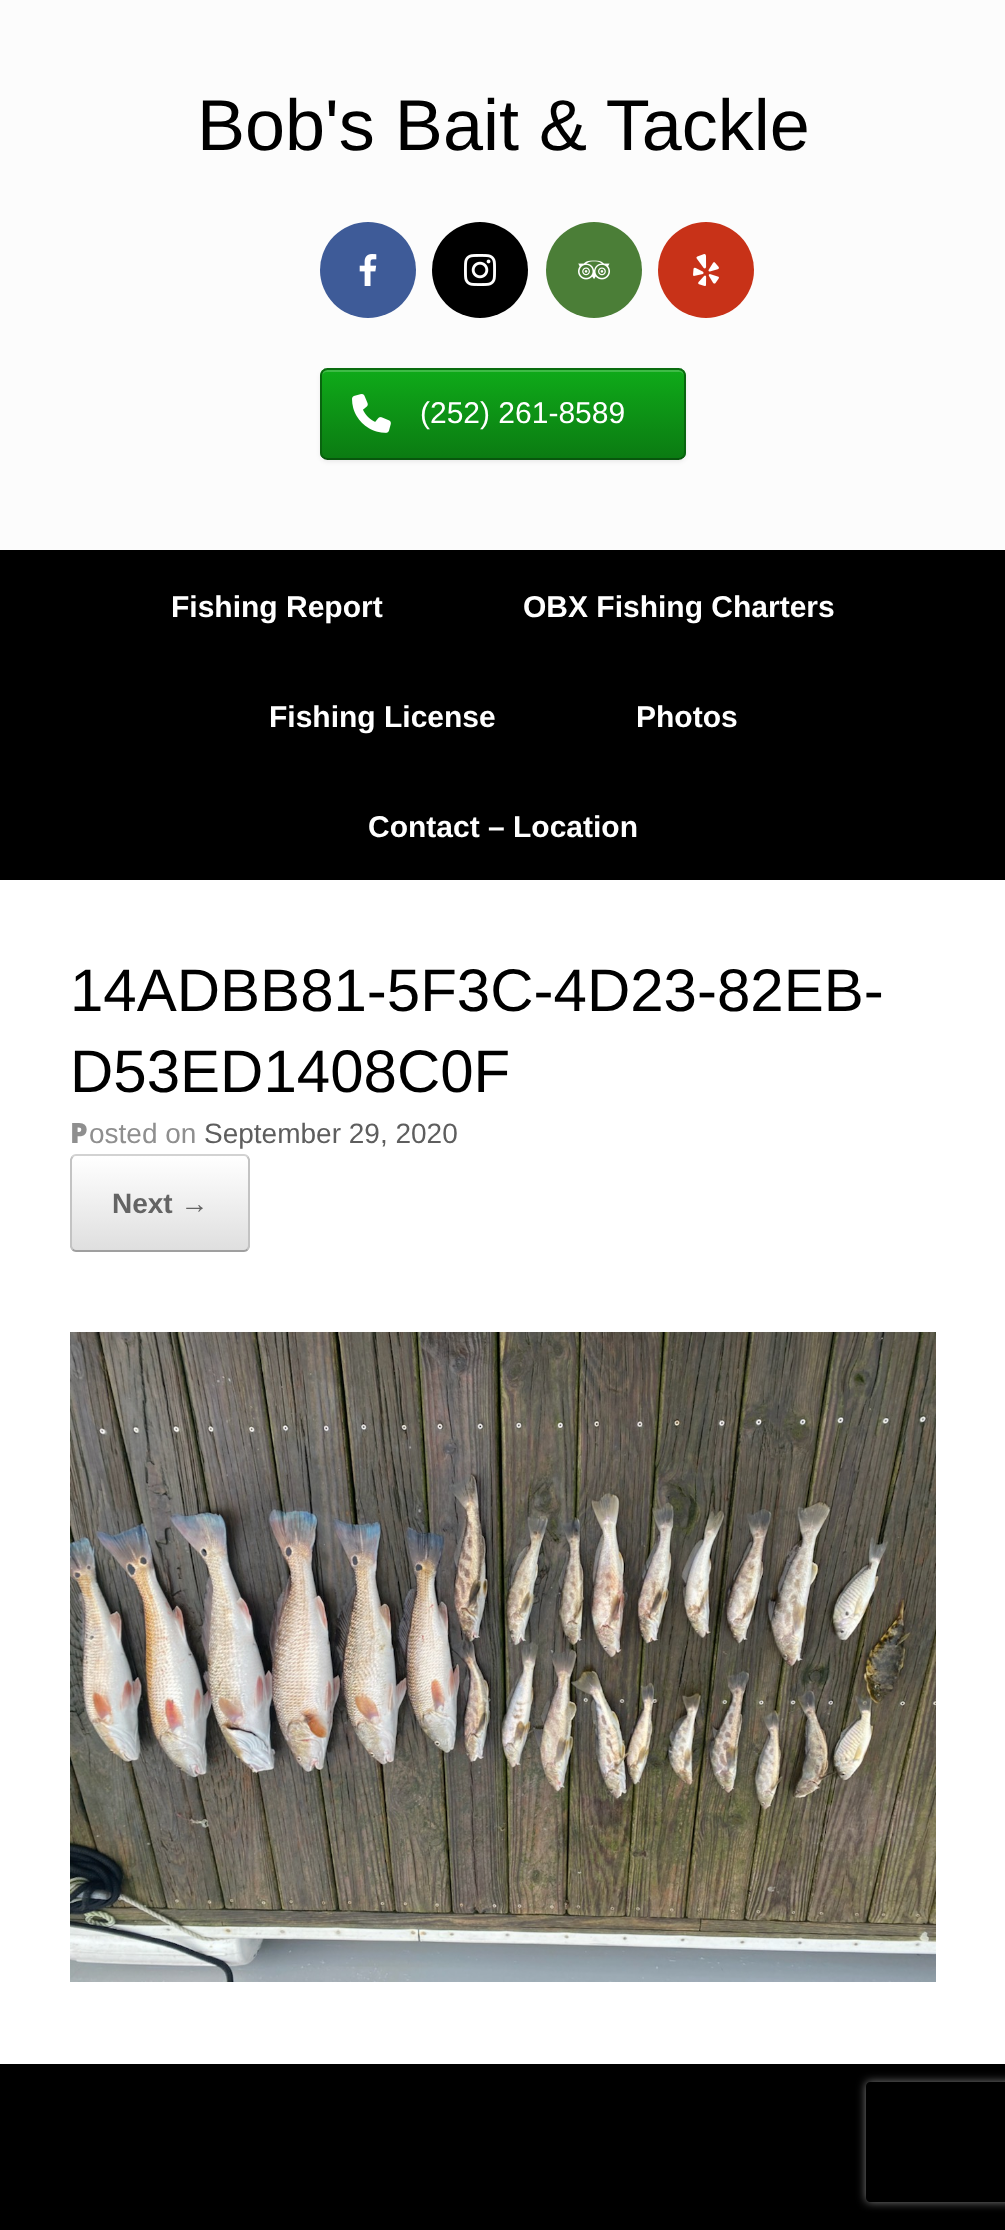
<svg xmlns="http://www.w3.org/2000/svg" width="1005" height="2230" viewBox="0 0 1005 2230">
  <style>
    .t1 { font: 72px Liberation Sans; fill: #000; }
    .t2 { font: 30px Liberation Sans; fill: #fff; }
    .t3 { font: bold 30px Liberation Sans; fill: #fff; }
    .t4 { font: 60px Liberation Sans; fill: #000; }
    .t5 { font: 900 28px Noto Sans; fill: #8f8f8f; }
    .t6 { font: 28px Liberation Sans; fill: #8f8f8f; }
    .t7 { font: 28px Liberation Sans; fill: #5e5e5e; }
    .t8 { font: bold 28px Liberation Sans; fill: #646464; }
  </style>
  <defs>
    <clipPath id="clip1"><rect x="320" y="368" width="366" height="92" rx="8"/></clipPath>
    <linearGradient id="g1" gradientUnits="userSpaceOnUse" x1="322" y1="458" x2="322" y2="370"><stop offset="0" stop-color="#0b7b12"/><stop offset="1" stop-color="#0faa19"/></linearGradient>
    <clipPath id="clip2"><rect x="70" y="1154" width="180" height="98" rx="6"/></clipPath>
    <linearGradient id="g2" gradientUnits="userSpaceOnUse" x1="72" y1="1250" x2="72" y2="1156"><stop offset="0" stop-color="#dfdfdf"/><stop offset="1" stop-color="#fff"/></linearGradient>
    <clipPath id="clip3"><path d="M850 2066H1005V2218H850ZM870 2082H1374C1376 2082 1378 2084 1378 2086V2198C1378 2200 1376 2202 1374 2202H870C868 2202 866 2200 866 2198V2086C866 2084 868 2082 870 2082Z" clip-rule="evenodd"/></clipPath>
  </defs>
  <rect width="100%" height="100%" fill="#000"/>
  <rect x="0" y="0" width="1005" height="550" fill="#fcfcfc"/>
  <text x="197" y="150" class="t1">Bob's Bait &amp; Tackle</text>
  <circle cx="368" cy="270" r="48" fill="#3e5b98"/>
  <image x="359" y="254" width="18" height="32" href="images/1.png"/>
  <circle cx="480" cy="270" r="48" fill="#000"/>
  <image x="464" y="254" width="32" height="32" href="images/2.png"/>
  <circle cx="594" cy="270" r="48" fill="#4b7e37"/>
  <image x="578" y="260" width="32" height="20" href="images/3.png"/>
  <circle cx="706" cy="270" r="48" fill="#c83218"/>
  <image x="693" y="254" width="26" height="32" href="images/4.png"/>
  <rect x="320" y="370" width="366" height="92" rx="8" fill="#00000012" filter="blur(2px)"/>
  <g clip-path="url(#clip1)">
    <rect x="320" y="370" width="366" height="88" fill="url(#g1)"/>
  </g>
  <path d="M327 372H679C682 372 684 374 684 377C684 374 683 370 679 370H327C323 370 322 374 322 377C322 374 324 372 327 372Z" fill="#3fbb47"/>
  <path d="M323 371C324 369.5 326 369 327.5 369H678.5C680 369 682 369.5 683 371" fill="none" stroke="#0a6d10" stroke-width="2"/>
  <path d="M683 371C684.5 372 685 374 685 375.5V452.5C685 454 684.5 456 683 457" fill="none" stroke="#09640f" stroke-width="2"/>
  <path d="M683 457C682 458.5 680 459 678.5 459H327.5C326 459 324 458.5 323 457" fill="none" stroke="#08560d" stroke-width="2"/>
  <path d="M323 457C321.5 456 321 454 321 452.5V375.5C321 374 321.5 372 323 371" fill="none" stroke="#09640f" stroke-width="2"/>
  <image x="352" y="394" width="39" height="39" href="images/5.png"/>
  <text x="420" y="423" class="t2">(252) 261-8589</text>
  <text x="171" y="617" class="t3">Fishing Report</text>
  <text x="523" y="617" class="t3">OBX Fishing Charters</text>
  <text x="269" y="727" class="t3">Fishing License</text>
  <text x="636" y="727" class="t3">Photos</text>
  <text x="368" y="837" class="t3">Contact – Location</text>
  <rect x="0" y="880" width="1005" height="1184" fill="#fff"/>
  <text x="70" y="1011" class="t4">14ADBB81-5F3C-4D23-82EB-</text>
  <text x="70" y="1092" class="t4">D53ED1408C0F</text>
  <text x="70" y="1143" class="t5">P</text>
  <text x="89" y="1143" class="t6">osted on</text>
  <text x="204" y="1143" class="t7">September 29, 2020</text>
  <g clip-path="url(#clip2)">
    <rect x="70" y="1156" width="180" height="94" fill="url(#g2)"/>
  </g>
  <path d="M72.5 1156.5C73.5 1155.5 74.5 1155 76 1155H244C245.5 1155 246.5 1155.5 247.5 1156.5" fill="none" stroke="#d2d2d2" stroke-width="2"/>
  <path d="M247.5 1156.5L249 1159.5V1246.5L247.5 1249.5" fill="none" stroke="#c3c3c3" stroke-width="2"/>
  <path d="M247.5 1249.5C246.5 1250.5 245.5 1251 244 1251H76C74.5 1251 73.5 1250.5 72.5 1249.5" fill="none" stroke="#9f9f9f" stroke-width="2"/>
  <path d="M72.5 1249.5L71 1246.5V1159.5L72.5 1156.5" fill="none" stroke="#c3c3c3" stroke-width="2"/>
  <text x="112" y="1213" class="t8">Next →</text>
  <image x="70" y="1332" width="866" height="650" href="images/6.png"/>
  <g clip-path="url(#clip3)">
    <rect x="866" y="2082" width="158" height="120" rx="4" fill="#808080" filter="blur(5px)"/>
  </g>
</svg>
